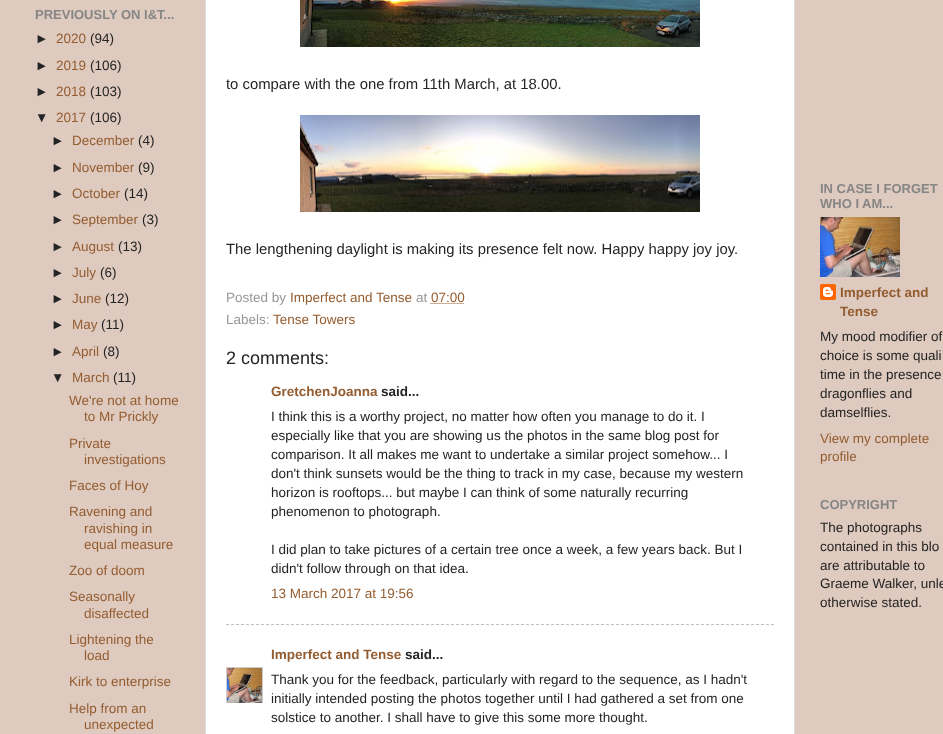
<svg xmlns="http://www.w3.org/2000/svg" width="943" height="734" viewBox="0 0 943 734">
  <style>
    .t1 { font: bold 13px Liberation Sans; fill: #868686; }
    .t2 { font: 13.5px Liberation Sans; fill: #242424; }
    .t3 { font: 13.5px Liberation Sans; fill: #945d31; }
    .t4 { font: 14.85px Liberation Sans; fill: #242424; }
    .t5 { font: 13.5px Liberation Sans; fill: #979797; }
    .t6 { font: 18px Liberation Sans; fill: #242424; }
    .t7 { font: bold 13.5px Liberation Sans; fill: #945d31; }
    .t8 { font: bold 13.5px Liberation Sans; fill: #242424; }
  </style>
  <defs>
    <clipPath id="clip1"><rect x="226" y="667" width="37" height="36"/></clipPath>
  </defs>
  <rect width="100%" height="100%" fill="#decabe"/>
  <text x="35" y="19" class="t1">PREVIOUSLY ON I&amp;T...</text>
  <text x="35" y="43" class="t2">►</text>
  <text x="56" y="43" class="t3">2020</text>
  <text x="90" y="43" class="t2">(94)</text>
  <text x="35" y="70" class="t2">►</text>
  <text x="56" y="70" class="t3">2019</text>
  <text x="90" y="70" class="t2">(106)</text>
  <text x="35" y="96" class="t2">►</text>
  <text x="56" y="96" class="t3">2018</text>
  <text x="90" y="96" class="t2">(103)</text>
  <text x="35" y="122" class="t2">▼</text>
  <text x="56" y="122" class="t3">2017</text>
  <text x="90" y="122" class="t2">(106)</text>
  <text x="51" y="145" class="t2">►</text>
  <text x="72" y="145" class="t3">December</text>
  <text x="138" y="145" class="t2">(4)</text>
  <text x="51" y="172" class="t2">►</text>
  <text x="72" y="172" class="t3">November</text>
  <text x="138" y="172" class="t2">(9)</text>
  <text x="51" y="198" class="t2">►</text>
  <text x="72" y="198" class="t3">October</text>
  <text x="124" y="198" class="t2">(14)</text>
  <text x="51" y="224" class="t2">►</text>
  <text x="72" y="224" class="t3">September</text>
  <text x="142" y="224" class="t2">(3)</text>
  <text x="51" y="251" class="t2">►</text>
  <text x="72" y="251" class="t3">August</text>
  <text x="118" y="251" class="t2">(13)</text>
  <text x="51" y="277" class="t2">►</text>
  <text x="72" y="277" class="t3">July</text>
  <text x="100" y="277" class="t2">(6)</text>
  <text x="51" y="303" class="t2">►</text>
  <text x="72" y="303" class="t3">June</text>
  <text x="105" y="303" class="t2">(12)</text>
  <text x="51" y="329" class="t2">►</text>
  <text x="72" y="329" class="t3">May</text>
  <text x="101" y="329" class="t2">(11)</text>
  <text x="51" y="356" class="t2">►</text>
  <text x="72" y="356" class="t3">April</text>
  <text x="103" y="356" class="t2">(8)</text>
  <text x="51" y="382" class="t2">▼</text>
  <text x="72" y="382" class="t3">March</text>
  <text x="113" y="382" class="t2">(11)</text>
  <text x="69" y="405" class="t3">We're not at home</text>
  <text x="84" y="421" class="t3">to Mr Prickly</text>
  <text x="69" y="448" class="t3">Private</text>
  <text x="84" y="464" class="t3">investigations</text>
  <text x="69" y="490" class="t3">Faces of Hoy</text>
  <text x="69" y="516" class="t3">Ravening and</text>
  <text x="84" y="533" class="t3">ravishing in</text>
  <text x="84" y="549" class="t3">equal measure</text>
  <text x="69" y="575" class="t3">Zoo of doom</text>
  <text x="69" y="601" class="t3">Seasonally</text>
  <text x="84" y="618" class="t3">disaffected</text>
  <text x="69" y="644" class="t3">Lightening the</text>
  <text x="84" y="660" class="t3">load</text>
  <text x="69" y="686" class="t3">Kirk to enterprise</text>
  <text x="69" y="713" class="t3">Help from an</text>
  <text x="84" y="729" class="t3">unexpected</text>
  <rect x="205.5" y="-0.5" width="589" height="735" fill="#fff" stroke="#dcdcdc"/>
  <image x="300" y="0" width="400" height="47" href="images/1.png"/>
  <text x="226" y="89" class="t4">to compare with the one from 11th March, at 18.00.</text>
  <image x="300" y="115" width="400" height="97" href="images/2.png"/>
  <text x="226" y="254" class="t4">The lengthening daylight is making its presence felt now. Happy happy joy joy.</text>
  <text x="226" y="302" class="t5">Posted by</text>
  <text x="290" y="302" class="t3">Imperfect and Tense</text>
  <text x="416" y="302" class="t5">at</text>
  <text x="431" y="302" class="t3">07:00</text>
  <path d="M430.5 303.5H464.5" fill="none" stroke="#945d31" stroke-dasharray="1 1"/>
  <text x="226" y="324" class="t5">Labels:</text>
  <text x="273" y="324" class="t3">Tense Towers</text>
  <text x="226" y="364" class="t6">2 comments:</text>
  <text x="271" y="396" class="t7">GretchenJoanna</text>
  <text x="381" y="396" class="t8">said...</text>
  <text x="271" y="421" class="t2">I think this is a worthy project, no matter how often you manage to do it. I</text>
  <text x="271" y="440" class="t2">especially like that you are showing us the photos in the same blog post for</text>
  <text x="271" y="459" class="t2">comparison. It all makes me want to undertake a similar project somehow... I</text>
  <text x="271" y="478" class="t2">don't think sunsets would be the thing to track in my case, because my western</text>
  <text x="271" y="497" class="t2">horizon is rooftops... but maybe I can think of some naturally recurring</text>
  <text x="271" y="516" class="t2">phenomenon to photograph.</text>
  <text x="271" y="554" class="t2">I did plan to take pictures of a certain tree once a week, a few years back. But I</text>
  <text x="271" y="573" class="t2">didn't follow through on that idea.</text>
  <text x="271" y="598" class="t3">13 March 2017 at 19:56</text>
  <path d="M226 624.5H774" fill="none" stroke="#c0c0c0" stroke-dasharray="3 2"/>
  <text x="271" y="659" class="t7">Imperfect and Tense</text>
  <text x="405" y="659" class="t8">said...</text>
  <g clip-path="url(#clip1)">
    <rect x="226.5" y="667.5" width="36" height="36" fill="none" stroke="#ccc"/>
  </g>
  <image x="227" y="668" width="35" height="35" href="images/3.png"/>
  <text x="271" y="684" class="t2">Thank you for the feedback, particularly with regard to the sequence, as I hadn't</text>
  <text x="271" y="703" class="t2">initially intended posting the photos together until I had gathered a set from one</text>
  <text x="271" y="722" class="t2">solstice to another. I shall have to give this some more thought.</text>
  <text x="820" y="193" class="t1">IN CASE I FORGET</text>
  <text x="820" y="208" class="t1">WHO I AM...</text>
  <image x="820" y="217" width="80" height="60" href="images/4.png"/>
  <image x="820" y="284" width="16" height="16" href="images/5.png"/>
  <text x="840" y="297" class="t7">Imperfect and</text>
  <text x="840" y="316" class="t7">Tense</text>
  <text x="820" y="341" class="t2">My mood modifier of</text>
  <text x="820" y="360" class="t2">choice is some quali</text>
  <text x="820" y="379" class="t2">time in the presence</text>
  <text x="820" y="398" class="t2">dragonflies and</text>
  <text x="820" y="417" class="t2">damselflies.</text>
  <text x="820" y="443" class="t3">View my complete</text>
  <text x="820" y="461" class="t3">profile</text>
  <text x="820" y="509" class="t1">COPYRIGHT</text>
  <text x="820" y="532" class="t2">The photographs</text>
  <text x="820" y="551" class="t2">contained in this blo</text>
  <text x="820" y="570" class="t2">are attributable to</text>
  <text x="820" y="588" class="t2">Graeme Walker, unle</text>
  <text x="820" y="607" class="t2">otherwise stated.</text>
</svg>
